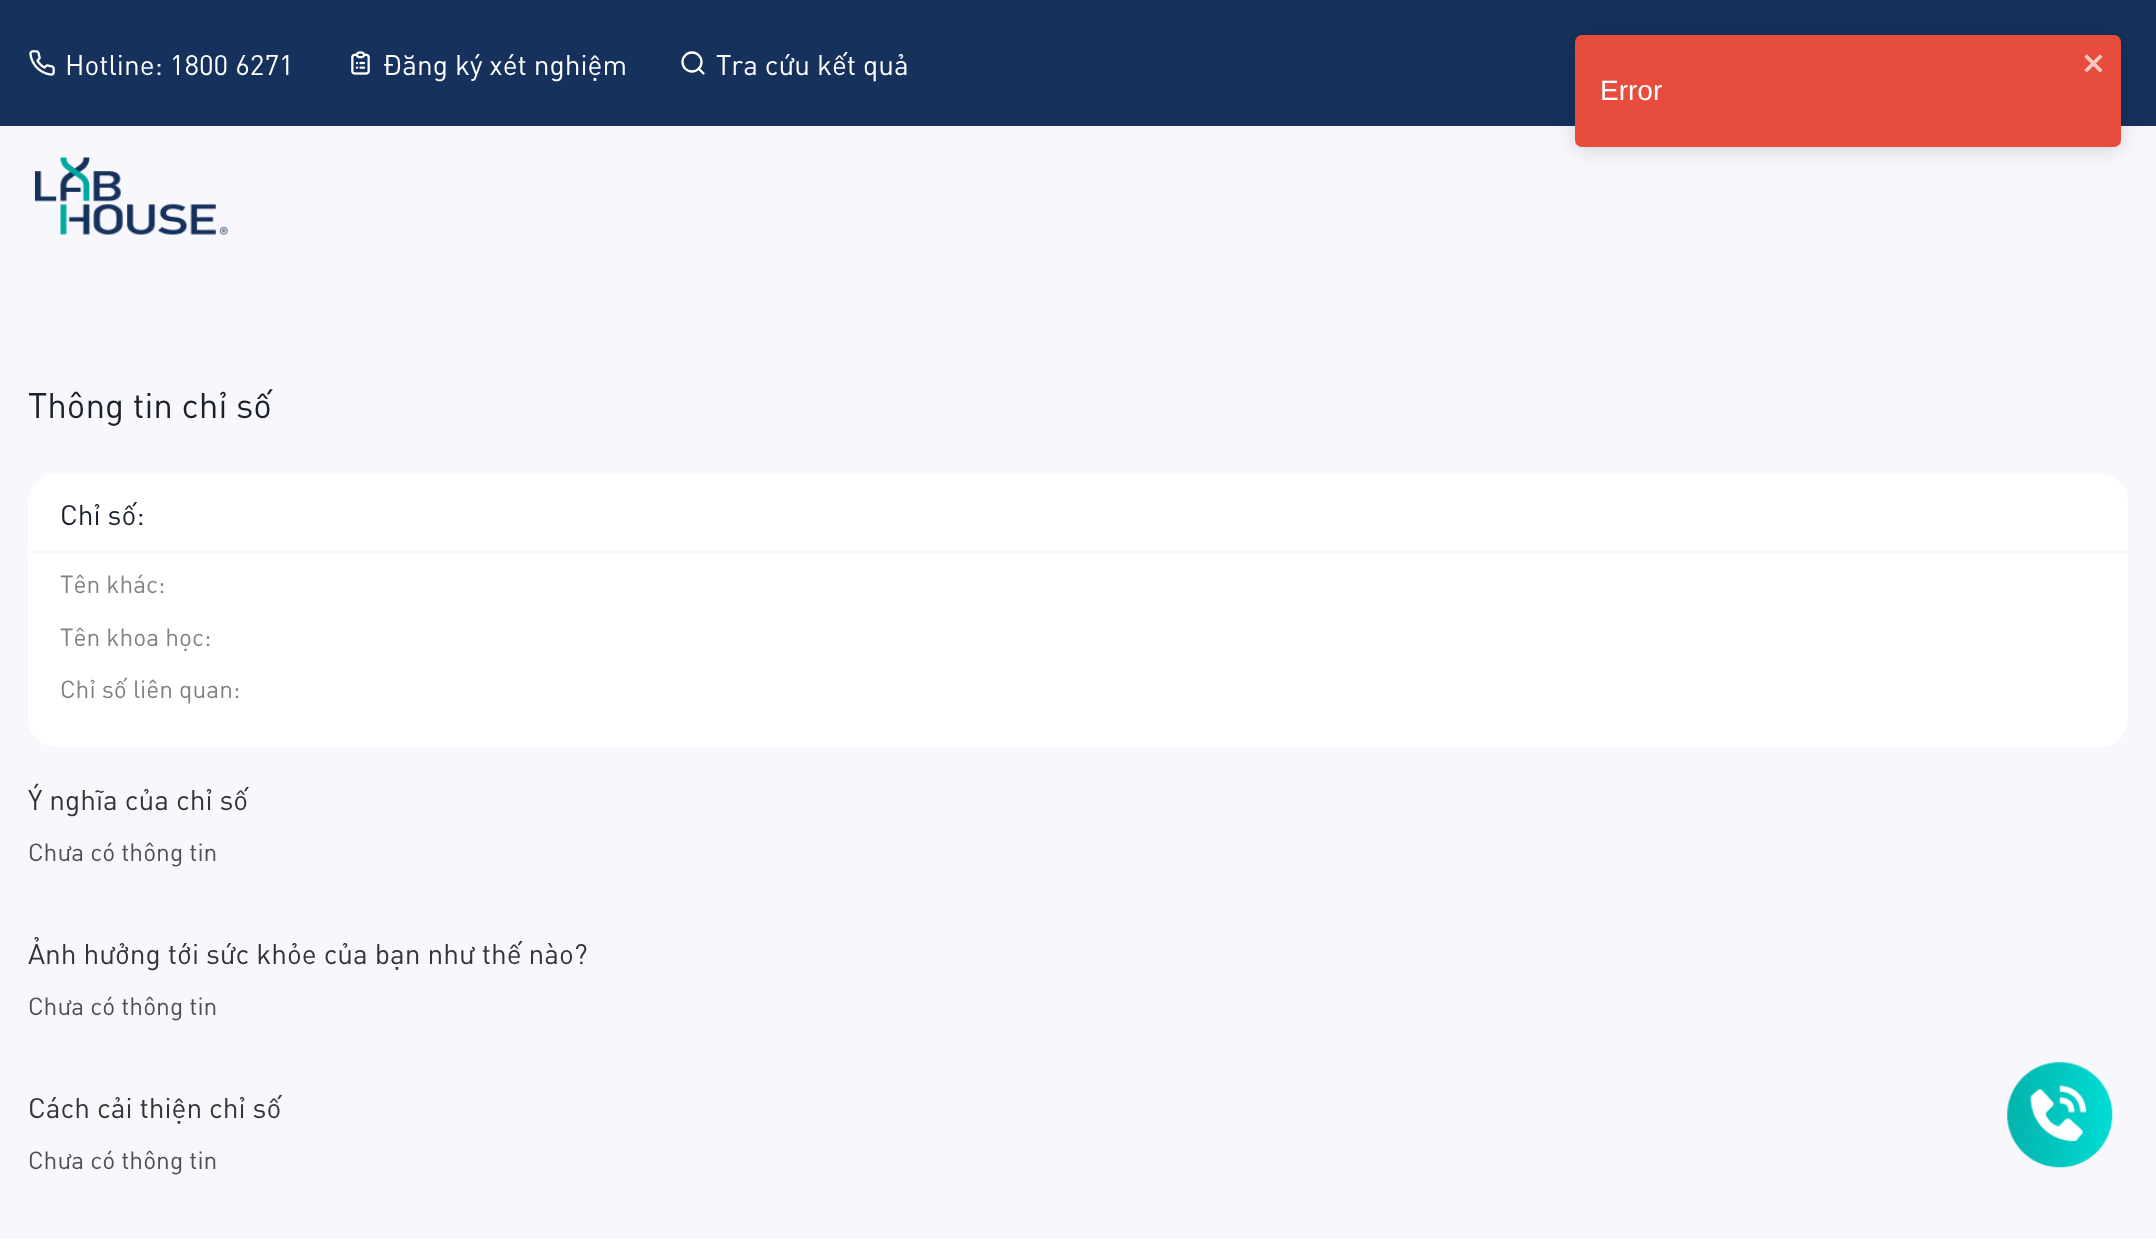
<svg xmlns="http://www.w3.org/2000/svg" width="2156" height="1254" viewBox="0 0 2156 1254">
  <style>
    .t1 { font: 28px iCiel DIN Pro; fill: #fff; }
    .t2 { font: 35px iCiel DIN Pro; fill: #1a202c; }
    .t3 { font: 28px iCiel DIN Pro; fill: #1a202c; }
    .t4 { font: 24.5px iCiel DIN Pro; fill: #828282; }
    .t5 { font: 28px iCiel DIN Pro; fill: #333; }
    .t6 { font: 24.5px iCiel DIN Pro; fill: #4f4f4f; }
    .t7 { font: 28px Liberation Sans; fill: #fff; }
  </style>
  <rect width="100%" height="100%" fill="#16325c"/>
  <image x="29" y="50" width="26" height="26" href="images/1.png"/>
  <text x="65" y="75" class="t1">Hotline: 1800 6271</text>
  <image x="351" y="51" width="19" height="24" href="images/2.png"/>
  <text x="383" y="75" class="t1">Đăng ký xét nghiệm</text>
  <circle cx="692" cy="62" r="9.5" fill="none" stroke="#fff" stroke-width="2.3"/>
  <path d="M703.5 73.5L698.5 68.5" fill="none" stroke="#fff" stroke-width="2.3" stroke-linecap="round" stroke-linejoin="round"/>
  <text x="716" y="75" class="t1">Tra cứu kết quả</text>
  <rect x="0" y="126" width="2156" height="1113" fill="#f7f7fc"/>
  <image x="35" y="157" width="193" height="78" href="images/3.png"/>
  <text x="28" y="418" class="t2">Thông tin chỉ số</text>
  <rect x="28" y="474" width="2100" height="273" rx="28" fill="#fff"/>
  <rect x="28" y="551" width="2100" height="2" fill="#f7f7fc"/>
  <text x="60" y="525" class="t3">Chỉ số:</text>
  <text x="60" y="593" class="t4">Tên khác:</text>
  <text x="60" y="646" class="t4">Tên khoa học:</text>
  <text x="60" y="698" class="t4">Chỉ số liên quan:</text>
  <text x="28" y="810" class="t5">Ý nghĩa của chỉ số</text>
  <text x="28" y="861" class="t6">Chưa có thông tin</text>
  <text x="28" y="964" class="t5">Ảnh hưởng tới sức khỏe của bạn như thế nào?</text>
  <text x="28" y="1015" class="t6">Chưa có thông tin</text>
  <text x="28" y="1118" class="t5">Cách cải thiện chỉ số</text>
  <text x="28" y="1169" class="t6">Chưa có thông tin</text>
  <rect x="0" y="1239" width="2156" height="15" fill="#fff"/>
  <image x="2007" y="1062" width="106" height="106" href="images/4.png"/>
  <rect x="1575" y="39" width="546" height="112" rx="7" fill="#0000000d" filter="blur(13px)"/>
  <rect x="1575" y="37" width="546" height="112" rx="7" fill="#0000001a" filter="blur(9px)"/>
  <rect x="1575" y="35" width="546" height="112" rx="7" fill="#e74c3c"/>
  <image x="2084" y="54" width="19" height="19" href="images/5.png"/>
  <text x="1600" y="100" class="t7">Error</text>
</svg>
